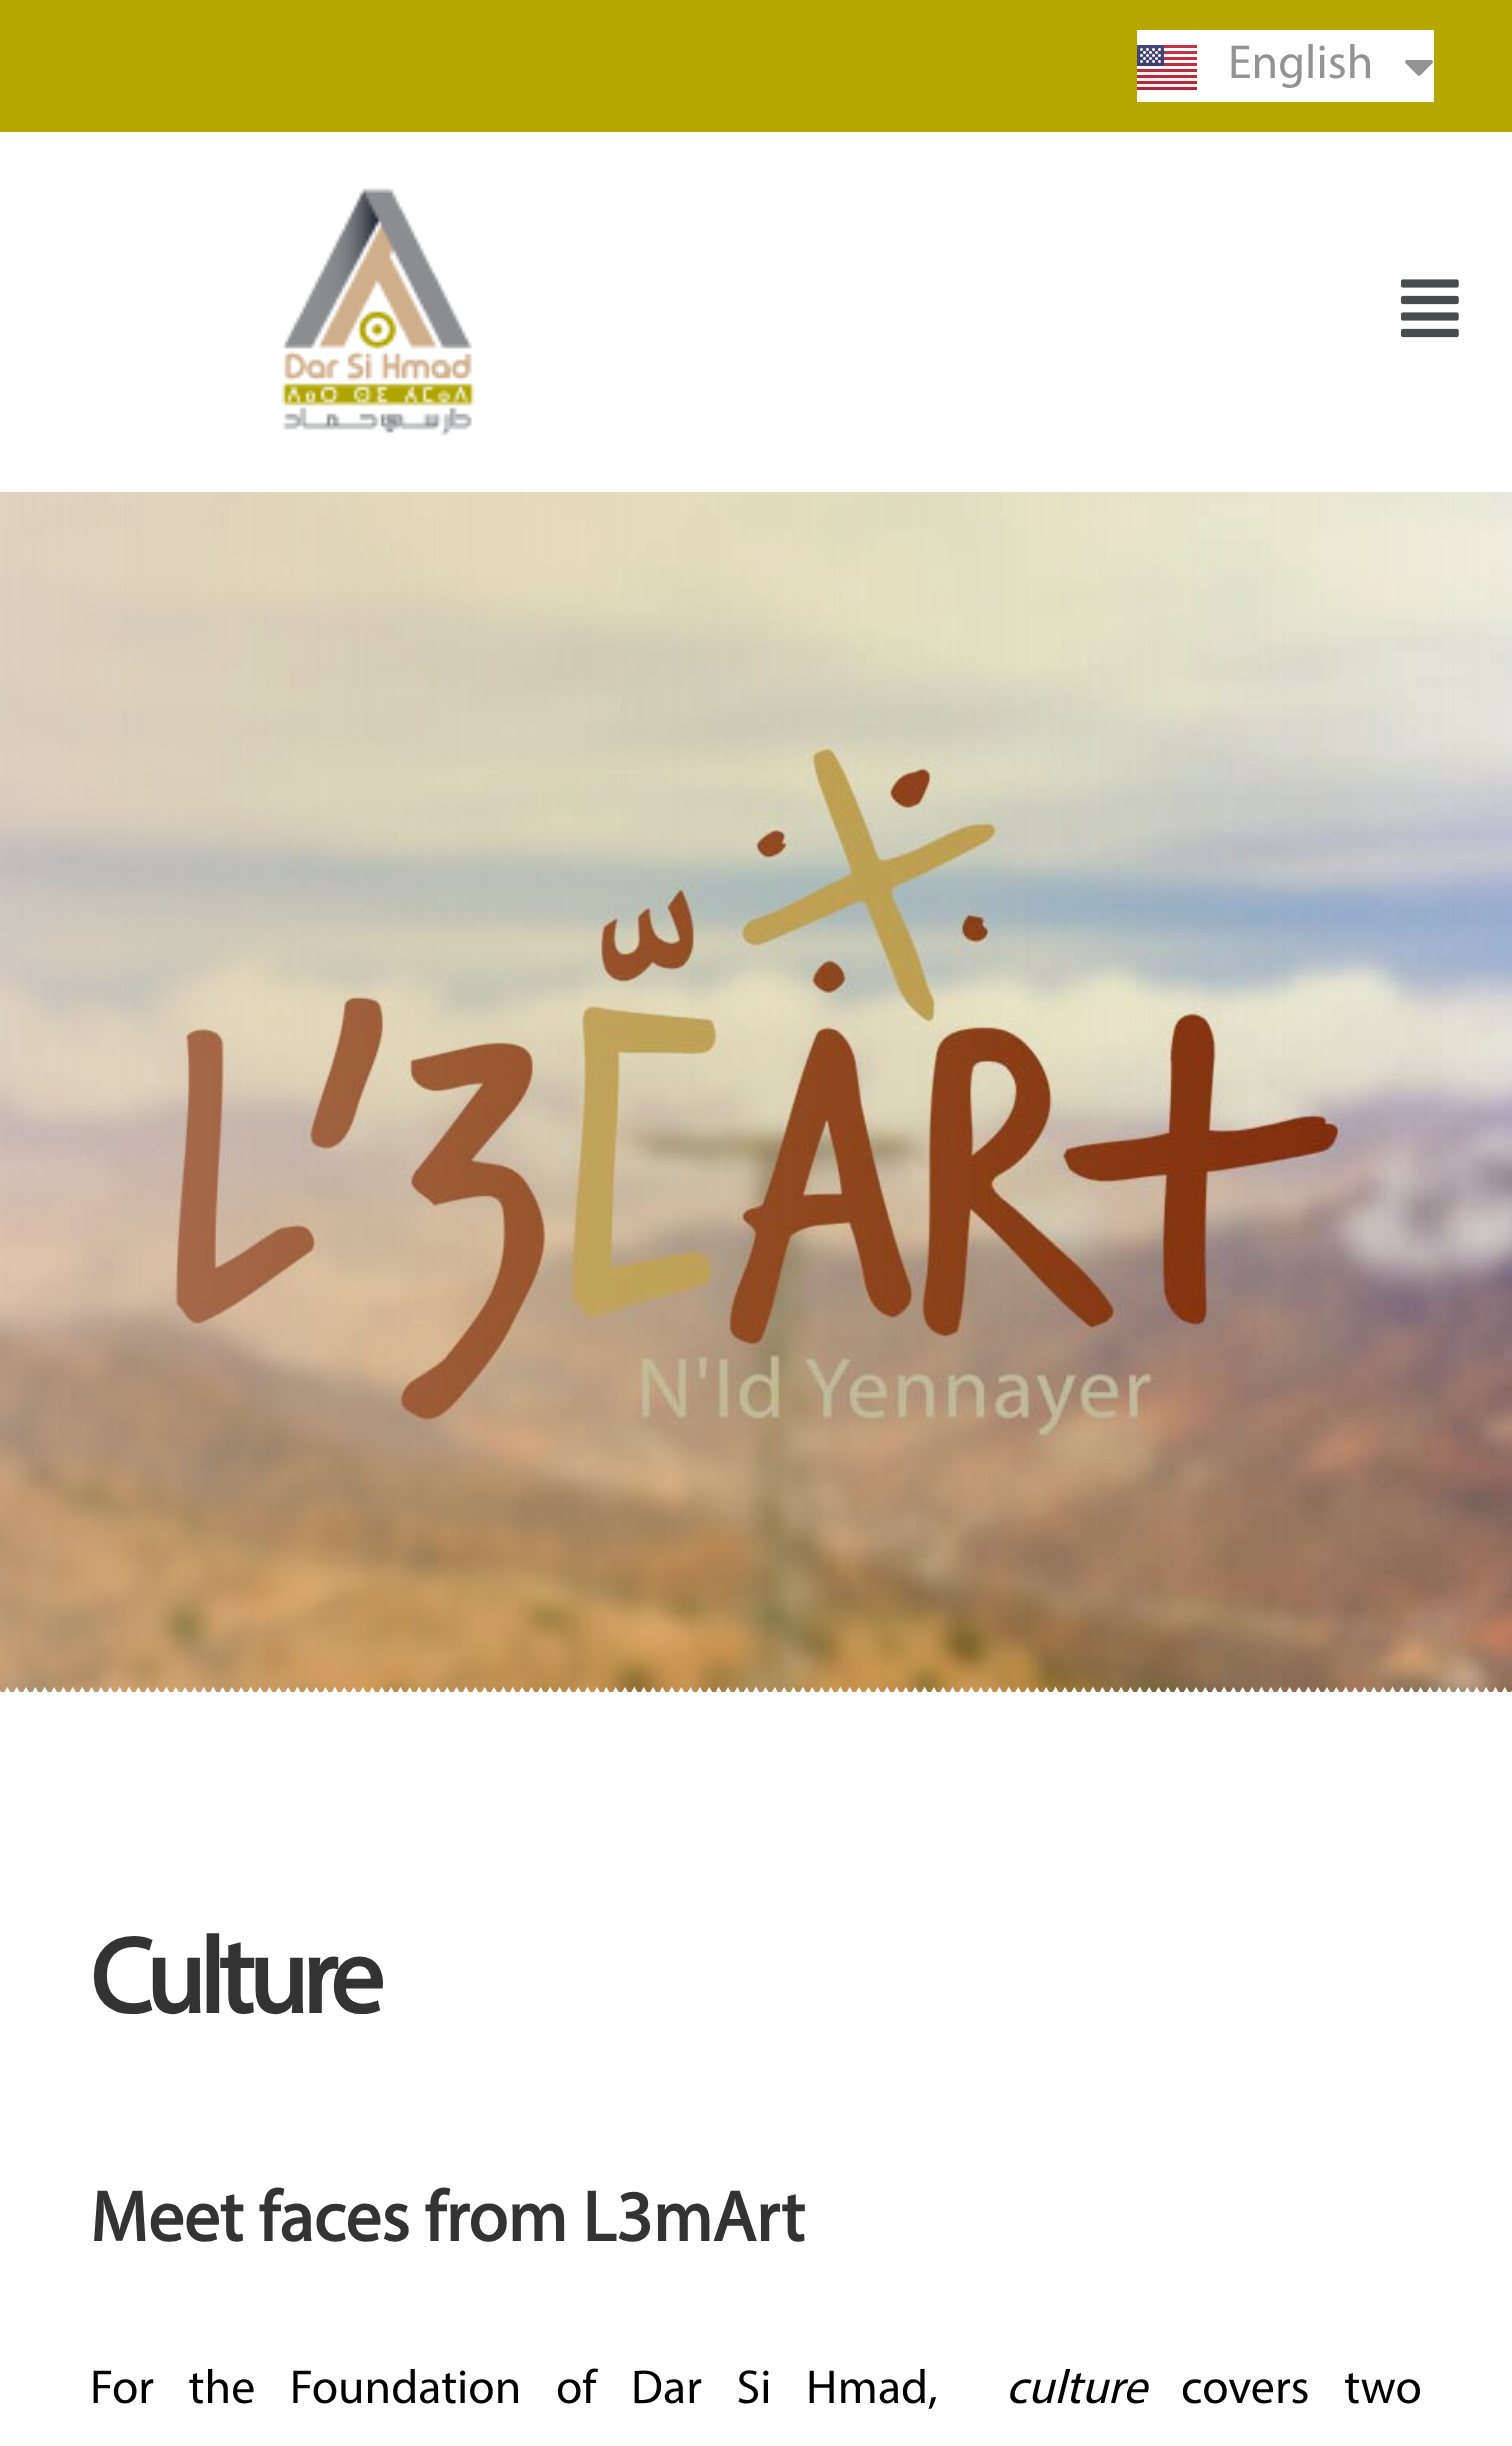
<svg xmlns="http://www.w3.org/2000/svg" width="1512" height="2446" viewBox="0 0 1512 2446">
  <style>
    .t1 { font: 48px Myriad; fill: #939393; }
    .t2 { font: bold 108px Myriad; letter-spacing: -6px; fill: #333; }
    .t3 { font: bold 71.5px Myriad; fill: #333; }
    .t4 { font: 48px Myriad; fill: #000; }
    .t5 { font: italic 48px Myriad; fill: #000; }
  </style>
  <rect width="100%" height="100%" fill="#fff"/>
  <rect x="0" y="0" width="1512" height="132" fill="#b6a700"/>
  <rect x="1137" y="30" width="297" height="72" fill="#fff"/>
  <image x="1137" y="45" width="60" height="45" href="images/1.png"/>
  <text x="1228" y="78" class="t1">English</text>
  <image x="1405" y="60" width="28" height="16" href="images/2.png"/>
  <image x="281" y="188" width="194" height="248" href="images/3.png"/>
  <image x="1401" y="279" width="58" height="59" href="images/4.png"/>
  <image x="0" y="492" width="1512" height="1200" href="images/5.png"/>
  <image x="0" y="1686" width="1512" height="6" href="images/6.png"/>
  <text x="90" y="2013" class="t2">Culture</text>
  <text x="90" y="2241" class="t3">Meet faces from L3mArt</text>
  <text x="90" y="2403" word-spacing="24.5" class="t4">For the Foundation of Dar Si Hmad,</text>
  <text x="1006" y="2403" class="t5">culture</text>
  <text x="1181" y="2403" word-spacing="24.5" class="t4">covers two</text>
</svg>
